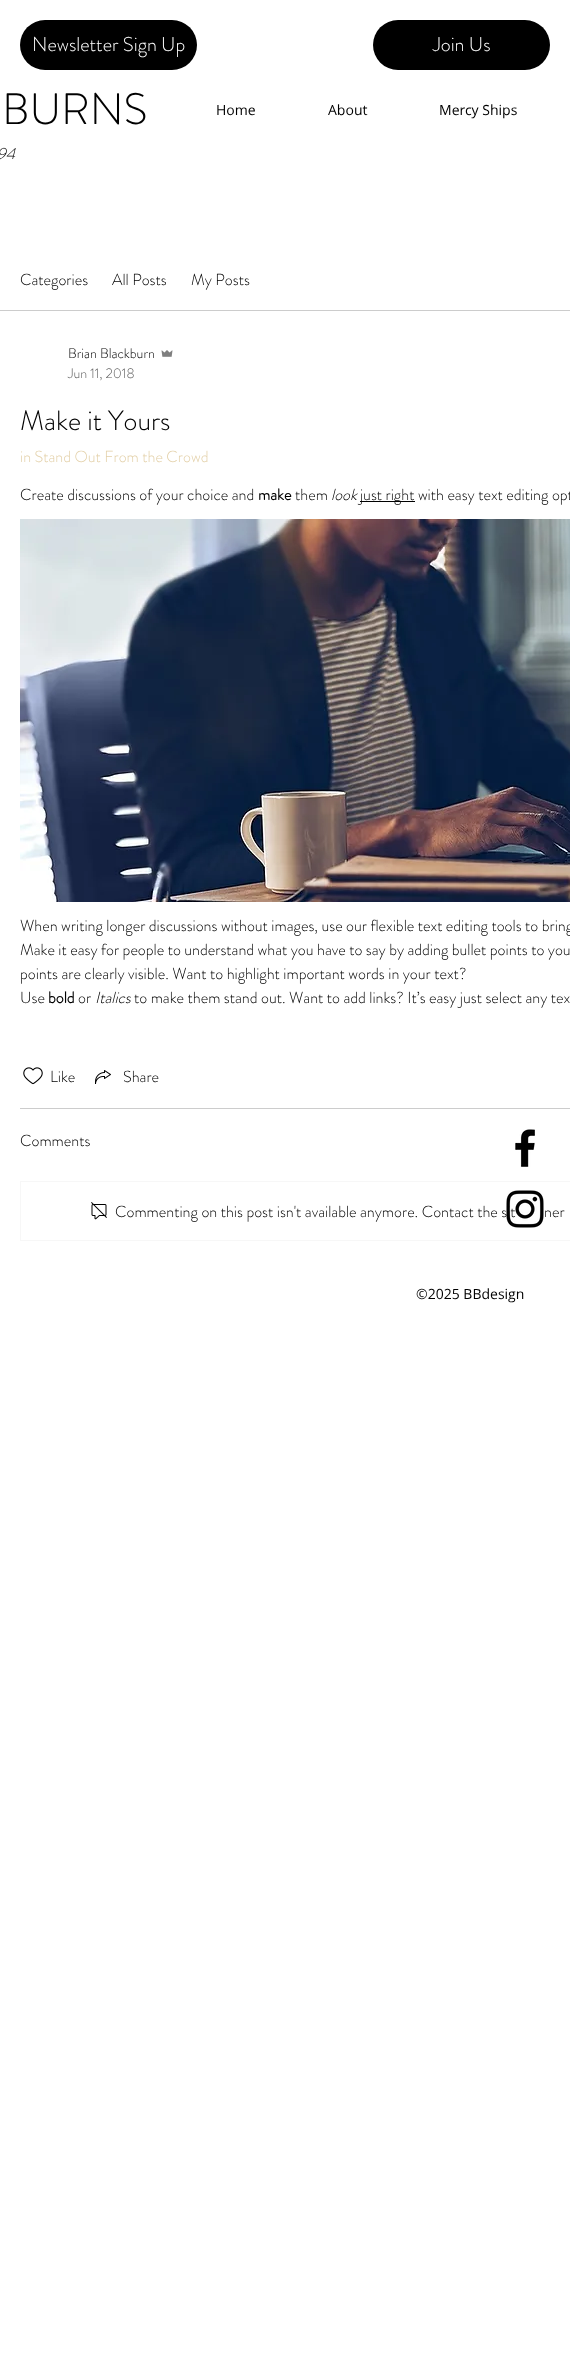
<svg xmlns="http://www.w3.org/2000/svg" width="570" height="2356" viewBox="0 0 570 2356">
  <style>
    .t1 { font: 300 20px 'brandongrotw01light'; fill: #fff; }
    .t2 { font: 300 44px 'brandongrotw01light'; fill: #000; }
    .t3 { font: 14px Open Sans; fill: #000; }
    .t4 { font: italic 300 16px 'brandongrotw01light'; fill: #000; }
    .t5 { font: 300 16px 'brandongrotw01light'; fill: #000; }
    .t6 { font: 300 14px 'brandongrotw01light'; fill: #000; }
    .t7 { font: 300 14px 'brandongrotw01light'; fill: #5c5c5c; }
    .t8 { font: 300 28px 'brandongrotw01light'; fill: #000; }
    .t9 { font: 300 16px 'brandongrotw01light'; fill: #e3d0a8; }
    .t10 { font: bold 16px 'brandongrotw01light'; fill: #000; }
  </style>
  <rect width="100%" height="100%" fill="#fff"/>
  <rect x="20" y="20" width="177" height="50" rx="25" fill="#000"/>
  <text x="32" y="51" class="t1">Newsletter Sign Up</text>
  <rect x="373" y="20" width="177" height="50" rx="25" fill="#000"/>
  <text x="433" y="51" class="t1">Join Us</text>
  <text x="2" y="124" class="t2">BURNS</text>
  <text x="216" y="115" class="t3">Home</text>
  <text x="328" y="115" class="t3">About</text>
  <text x="439" y="115" class="t3">Mercy Ships</text>
  <text x="-3" y="159" class="t4">94</text>
  <rect x="0" y="310" width="570" height="1" fill="#ccc"/>
  <text x="20" y="285" class="t5">Categories</text>
  <text x="112" y="285" class="t5">All Posts</text>
  <text x="191" y="285" class="t5">My Posts</text>
  <text x="68" y="358" class="t6">Brian Blackburn</text>
  <image x="161" y="350" width="12" height="7" href="images/1.png"/>
  <text x="68" y="378" class="t7">Jun 11, 2018</text>
  <text x="20" y="430" class="t8">Make it Yours</text>
  <text x="20" y="462" class="t9">in Stand Out From the Crowd</text>
  <text x="20" y="500" class="t5">Create discussions of your choice and</text>
  <text x="258" y="500" class="t10">make</text>
  <text x="295" y="500" class="t5">them</text>
  <text x="331" y="500" class="t4">look</text>
  <rect x="360" y="501" width="55" height="1" fill="#000"/>
  <text x="360" y="500" class="t5">just right with easy text editing opt</text>
  <image x="20" y="519" width="550" height="383" href="images/2.png"/>
  <text x="20" y="931" class="t5">When writing longer discussions without images, use our flexible text editing tools to bring</text>
  <text x="20" y="955" class="t5">Make it easy for people to understand what you have to say by adding bullet points to you</text>
  <text x="20" y="979" class="t5">points are clearly visible. Want to highlight important words in your text?</text>
  <text x="20" y="1003" class="t5">Use</text>
  <text x="48" y="1003" class="t10">bold</text>
  <text x="78" y="1003" class="t5">or</text>
  <text x="95" y="1003" class="t4">Italics</text>
  <text x="134" y="1003" class="t5">to make them stand out. Want to add links? It’s easy just select any tex</text>
  <image x="23" y="1067" width="20" height="18" href="images/3.png"/>
  <text x="50" y="1082" class="t5">Like</text>
  <image x="95" y="1070" width="16" height="14" href="images/4.png"/>
  <text x="123" y="1082" class="t5">Share</text>
  <rect x="20" y="1108" width="550" height="1" fill="#ccc"/>
  <text x="20" y="1146" class="t5">Comments</text>
  <rect x="20.5" y="1181.5" width="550" height="59" fill="none" stroke="#f7f7f7"/>
  <image x="91" y="1202" width="16" height="18" href="images/5.png"/>
  <text x="115" y="1217" class="t5">Commenting on this post isn't available anymore. Contact the sit</text>
  <text x="544" y="1217" class="t5">ner</text>
  <image x="515" y="1129" width="20" height="38" href="images/6.png"/>
  <image x="506" y="1190" width="38" height="38" href="images/7.png"/>
  <text x="416" y="1299" class="t3">©2025 BBdesign</text>
</svg>
